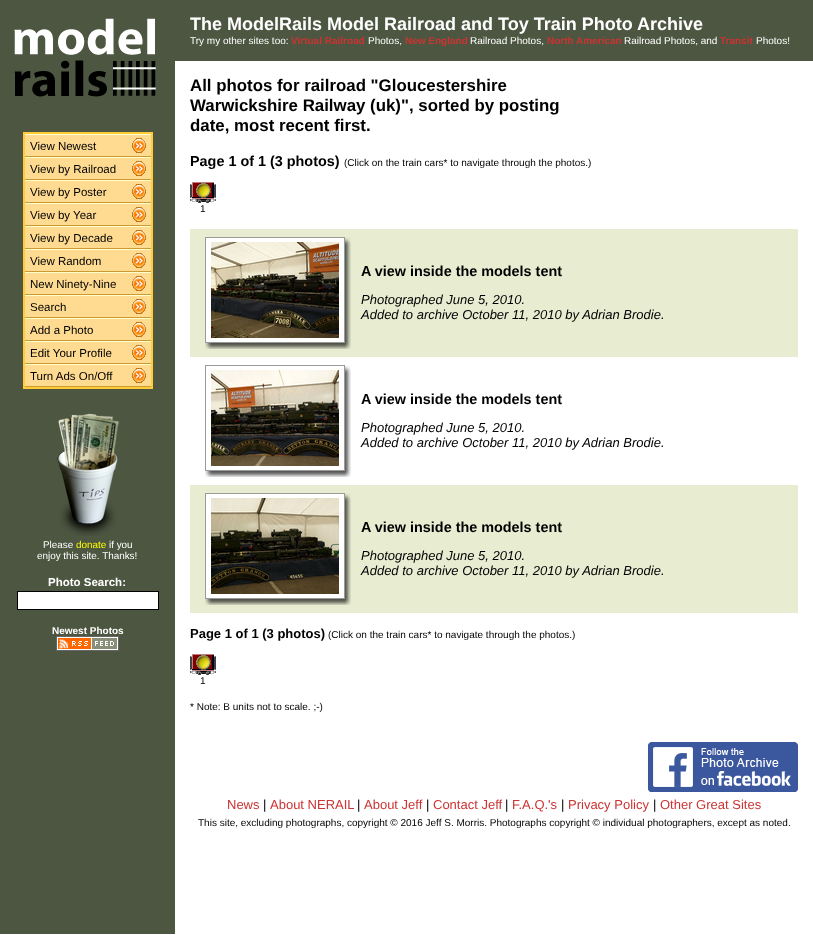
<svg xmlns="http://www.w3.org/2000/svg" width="813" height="935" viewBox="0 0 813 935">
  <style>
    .t1 { font: 11.5px Liberation Sans; fill: #000; }
    .t2 { font: 9.9px Liberation Sans; fill: #fff; }
    .t3 { font: 9.9px Liberation Sans; fill: #ff0; }
    .t4 { font: bold 11.5px Liberation Sans; fill: #fff; }
    .t5 { font: bold 10px Liberation Sans; fill: #fff; }
    .t6 { font: bold 18px Liberation Sans; fill: #fff; }
    .t7 { font: 10px Liberation Sans; fill: #fff; }
    .t8 { font: bold 10px Liberation Sans; fill: #c33; }
    .t9 { font: bold 16.85px Liberation Sans; fill: #000; }
    .t10 { font: bold 14.4px Liberation Sans; fill: #000; }
    .t11 { font: 10px Liberation Sans; fill: #000; }
    .t12 { font: italic 13px Liberation Sans; fill: #000; }
    .t13 { font: bold 13px Liberation Sans; fill: #000; }
    .t14 { font: 13px Liberation Sans; fill: #c33; }
    .t15 { font: 13px Liberation Sans; fill: #000; }
  </style>
  <rect width="100%" height="100%" fill="#fff"/>
  <rect x="0" y="0" width="175" height="934" fill="#4d5641"/>
  <image x="14" y="18" width="142" height="79" href="images/1.png"/>
  <rect x="25" y="135" width="126" height="251" fill="#ffdb91"/>
  <rect x="24" y="133" width="128" height="255" fill="none" stroke="#fc3" stroke-width="2"/>
  <rect x="25" y="134" width="126" height="1" fill="#ffc"/>
  <rect x="25" y="156" width="126" height="1" fill="#c93"/>
  <text x="30" y="150" class="t1">View Newest</text>
  <image x="132" y="138" width="14" height="15" href="images/2.png"/>
  <rect x="25" y="157" width="126" height="1" fill="#ffc"/>
  <rect x="25" y="179" width="126" height="1" fill="#c93"/>
  <text x="30" y="173" class="t1">View by Railroad</text>
  <image x="132" y="161" width="14" height="15" href="images/2.png"/>
  <rect x="25" y="180" width="126" height="1" fill="#ffc"/>
  <rect x="25" y="202" width="126" height="1" fill="#c93"/>
  <text x="30" y="196" class="t1">View by Poster</text>
  <image x="132" y="184" width="14" height="15" href="images/2.png"/>
  <rect x="25" y="203" width="126" height="1" fill="#ffc"/>
  <rect x="25" y="225" width="126" height="1" fill="#c93"/>
  <text x="30" y="219" class="t1">View by Year</text>
  <image x="132" y="207" width="14" height="15" href="images/2.png"/>
  <rect x="25" y="226" width="126" height="1" fill="#ffc"/>
  <rect x="25" y="248" width="126" height="1" fill="#c93"/>
  <text x="30" y="242" class="t1">View by Decade</text>
  <image x="132" y="230" width="14" height="15" href="images/2.png"/>
  <rect x="25" y="249" width="126" height="1" fill="#ffc"/>
  <rect x="25" y="271" width="126" height="1" fill="#c93"/>
  <text x="30" y="265" class="t1">View Random</text>
  <image x="132" y="253" width="14" height="15" href="images/2.png"/>
  <rect x="25" y="272" width="126" height="1" fill="#ffc"/>
  <rect x="25" y="294" width="126" height="1" fill="#c93"/>
  <text x="30" y="288" class="t1">New Ninety-Nine</text>
  <image x="132" y="276" width="14" height="15" href="images/2.png"/>
  <rect x="25" y="295" width="126" height="1" fill="#ffc"/>
  <rect x="25" y="317" width="126" height="1" fill="#c93"/>
  <text x="30" y="311" class="t1">Search</text>
  <image x="132" y="299" width="14" height="15" href="images/2.png"/>
  <rect x="25" y="318" width="126" height="1" fill="#ffc"/>
  <rect x="25" y="340" width="126" height="1" fill="#c93"/>
  <text x="30" y="334" class="t1">Add a Photo</text>
  <image x="132" y="322" width="14" height="15" href="images/2.png"/>
  <rect x="25" y="341" width="126" height="1" fill="#ffc"/>
  <rect x="25" y="363" width="126" height="1" fill="#c93"/>
  <text x="30" y="357" class="t1">Edit Your Profile</text>
  <image x="132" y="345" width="14" height="15" href="images/2.png"/>
  <rect x="25" y="364" width="126" height="1" fill="#ffc"/>
  <rect x="25" y="386" width="126" height="1" fill="#c93"/>
  <text x="30" y="380" class="t1">Turn Ads On/Off</text>
  <image x="132" y="368" width="14" height="15" href="images/2.png"/>
  <image x="57" y="413" width="63" height="123" href="images/3.png"/>
  <text x="43" y="548" class="t2">Please</text>
  <text x="76" y="548" class="t3">donate</text>
  <text x="109" y="548" class="t2">if you</text>
  <text x="37" y="559" class="t2">enjoy this site. Thanks!</text>
  <text x="48" y="586" class="t4">Photo Search:</text>
  <rect x="17.5" y="591.5" width="141" height="18" fill="#fff" stroke="#000"/>
  <text x="52" y="634" class="t5">Newest Photos</text>
  <image x="56" y="636" width="63" height="15" href="images/4.png"/>
  <rect x="175" y="0" width="638" height="61" fill="#4d5641"/>
  <text x="190" y="30" class="t6">The ModelRails Model Railroad and Toy Train Photo Archive</text>
  <text x="190" y="44" class="t7">Try my other sites too:</text>
  <text x="291" y="44" class="t8">Virtual Railroad</text>
  <text x="368" y="44" class="t7">Photos,</text>
  <text x="405" y="44" class="t8">New England</text>
  <text x="470" y="44" class="t7">Railroad Photos,</text>
  <text x="547" y="44" class="t8">North American</text>
  <text x="624" y="44" class="t7">Railroad Photos, and</text>
  <text x="720" y="44" class="t8">Transit</text>
  <text x="756" y="44" class="t7">Photos!</text>
  <text x="190" y="91" class="t9">All photos for railroad "Gloucestershire</text>
  <text x="190" y="111" class="t9">Warwickshire Railway (uk)", sorted by posting</text>
  <text x="190" y="131" class="t9">date, most recent first.</text>
  <text x="190" y="166" class="t10">Page 1 of 1 (3 photos)</text>
  <text x="344" y="166" class="t11">(Click on the train cars* to navigate through the photos.)</text>
  <image x="190" y="182" width="26" height="21" href="images/5.png"/>
  <text x="200" y="212" class="t11">1</text>
  <rect x="190" y="229" width="608" height="128" fill="#e8ecd1"/>
  <rect x="205.5" y="237.5" width="139" height="105" fill="#fff" stroke="#9a9a9a"/>
  <image x="211" y="242" width="128" height="96" href="images/6.png"/>
  <image x="345" y="237" width="6" height="106" href="images/7.png"/>
  <image x="205" y="343" width="140" height="6" href="images/8.png"/>
  <image x="345" y="343" width="6" height="6" href="images/9.png"/>
  <text x="361" y="276" class="t10">A view inside the models tent</text>
  <text x="361" y="304" class="t12">Photographed June 5, 2010.</text>
  <text x="361" y="319" class="t12">Added to archive October 11, 2010 by Adrian Brodie.</text>
  <rect x="205.5" y="365.5" width="139" height="105" fill="none" stroke="#9a9a9a"/>
  <image x="211" y="370" width="128" height="96" href="images/10.png"/>
  <image x="345" y="365" width="6" height="106" href="images/11.png"/>
  <image x="205" y="471" width="140" height="6" href="images/12.png"/>
  <image x="345" y="471" width="6" height="6" href="images/13.png"/>
  <text x="361" y="404" class="t10">A view inside the models tent</text>
  <text x="361" y="432" class="t12">Photographed June 5, 2010.</text>
  <text x="361" y="447" class="t12">Added to archive October 11, 2010 by Adrian Brodie.</text>
  <rect x="190" y="485" width="608" height="128" fill="#e8ecd1"/>
  <rect x="205.5" y="493.5" width="139" height="105" fill="#fff" stroke="#9a9a9a"/>
  <image x="211" y="498" width="128" height="96" href="images/14.png"/>
  <image x="345" y="493" width="6" height="106" href="images/7.png"/>
  <image x="205" y="599" width="140" height="6" href="images/8.png"/>
  <image x="345" y="599" width="6" height="6" href="images/9.png"/>
  <text x="361" y="532" class="t10">A view inside the models tent</text>
  <text x="361" y="560" class="t12">Photographed June 5, 2010.</text>
  <text x="361" y="575" class="t12">Added to archive October 11, 2010 by Adrian Brodie.</text>
  <text x="190" y="638" class="t13">Page 1 of 1 (3 photos)</text>
  <text x="328" y="638" class="t11">(Click on the train cars* to navigate through the photos.)</text>
  <image x="190" y="654" width="26" height="21" href="images/5.png"/>
  <text x="200" y="684" class="t11">1</text>
  <text x="190" y="710" class="t11">* Note: B units not to scale. ;-)</text>
  <image x="648" y="742" width="150" height="50" href="images/15.png"/>
  <text x="227" y="809" class="t14">News</text>
  <text x="263" y="809" class="t15">|</text>
  <text x="270" y="809" class="t14">About NERAIL</text>
  <text x="357" y="809" class="t15">|</text>
  <text x="364" y="809" class="t14">About Jeff</text>
  <text x="426" y="809" class="t15">|</text>
  <text x="433" y="809" class="t14">Contact Jeff</text>
  <text x="505" y="809" class="t15">|</text>
  <text x="512" y="809" class="t14">F.A.Q.'s</text>
  <text x="561" y="809" class="t15">|</text>
  <text x="568" y="809" class="t14">Privacy Policy</text>
  <text x="653" y="809" class="t15">|</text>
  <text x="660" y="809" class="t14">Other Great Sites</text>
  <text x="198" y="826" class="t11">This site, excluding photographs, copyright © 2016 Jeff S. Morris. Photographs copyright © individual photographers, except as noted.</text>
</svg>
